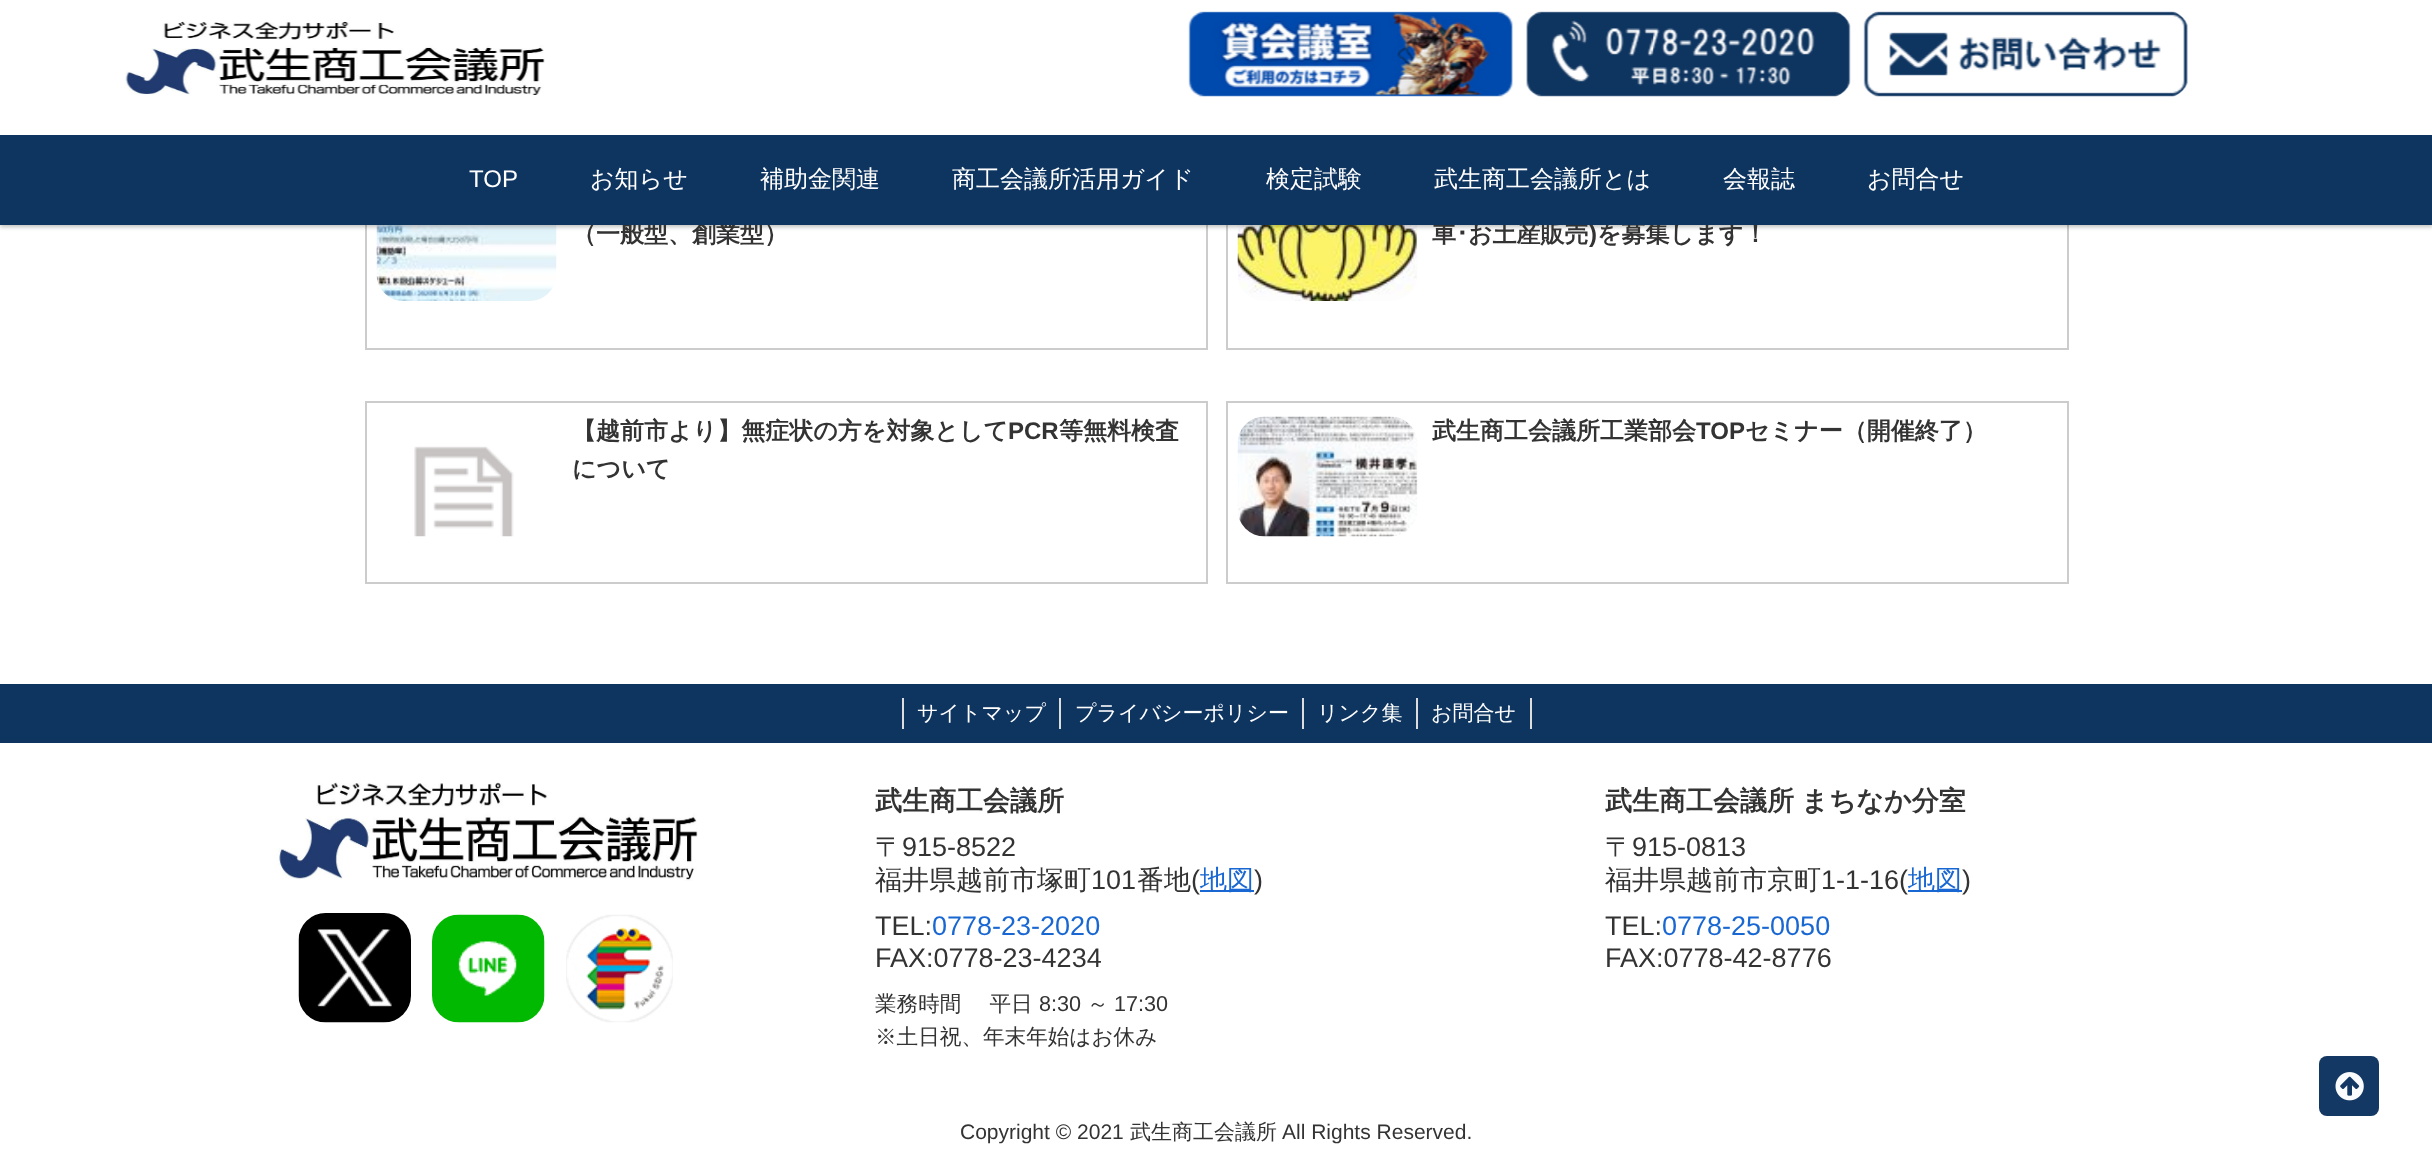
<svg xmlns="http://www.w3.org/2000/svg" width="2432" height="1169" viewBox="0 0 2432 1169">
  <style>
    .t1 { font: bold 24px WenQuanYi Zen Hei; fill: #333; }
    .t2 { font: bold 24px Liberation Sans; fill: #333; }
    .t3 { font: 24px Liberation Sans; fill: #fff; }
    .t4 { font: 500 24px WenQuanYi Zen Hei; fill: #fff; }
    .t5 { font: bold 24px IPAPGothic; fill: #333; }
    .t6 { font: 500 21px WenQuanYi Zen Hei; fill: #fff; }
    .t7 { font: bold 27px WenQuanYi Zen Hei; fill: #333; }
    .t8 { font: 500 27px WenQuanYi Zen Hei; fill: #333; }
    .t9 { font: 27px Liberation Sans; fill: #333; }
    .t10 { font: 500 27px WenQuanYi Zen Hei; fill: #1967d2; }
    .t11 { font: 27px Liberation Sans; fill: #1967d2; }
    .t12 { font: 500 21.6px WenQuanYi Zen Hei; fill: #333; }
    .t13 { font: 21.6px Liberation Sans; fill: #333; }
    .t14 { font: 21px Liberation Sans; fill: #333; }
    .t15 { font: 500 21px WenQuanYi Zen Hei; fill: #333; }
  </style>
  <rect width="100%" height="100%" fill="#fff"/>
  <rect x="366" y="166" width="841" height="183" fill="none" stroke="#ccc" stroke-width="2"/>
  <image x="376" y="225" width="181" height="76" href="images/5.png"/>
  <rect x="1227" y="166" width="841" height="183" fill="none" stroke="#ccc" stroke-width="2"/>
  <image x="1237" y="225" width="181" height="76" href="images/6.png"/>
  <rect x="0" y="2" width="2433" height="225" fill="#00000040" filter="blur(2px)"/>
  <rect x="0" y="0" width="2432" height="135" fill="#fff"/>
  <image x="125" y="21" width="420" height="74" href="images/1.png"/>
  <image x="1188" y="11" width="325" height="86" href="images/2.png"/>
  <image x="1526" y="11" width="325" height="86" href="images/3.png"/>
  <image x="1863" y="11" width="325" height="86" href="images/4.png"/>
  <text x="572" y="242" class="t1">（一般型、創業型）</text>
  <text x="1432" y="242" class="t1">車</text>
  <text x="1468" y="242" class="t1">お土産販売</text>
  <text x="1589" y="242" class="t2">)</text>
  <text x="1597" y="242" class="t1">を募集します！</text>
  <rect x="0" y="135" width="2432" height="90" fill="#0e3460"/>
  <text x="469" y="187" class="t3">TOP</text>
  <text x="590" y="187" class="t4">お知らせ</text>
  <text x="760" y="187" class="t4">補助金関連</text>
  <text x="952" y="187" class="t4">商工会議所活用ガイド</text>
  <text x="1266" y="187" class="t4">検定試験</text>
  <text x="1434" y="187" class="t4">武生商工会議所とは</text>
  <text x="1723" y="187" class="t4">会報誌</text>
  <text x="1867" y="187" class="t4">お問合せ</text>
  <text x="1456" y="242" class="t5">･</text>
  <rect x="366" y="402" width="841" height="181" fill="none" stroke="#ccc" stroke-width="2"/>
  <image x="414" y="446" width="100" height="91" href="images/7.png"/>
  <text x="572" y="439" class="t1">【越前市より】無症状の方を対象として</text>
  <text x="1008" y="439" class="t2">PCR</text>
  <text x="1059" y="439" class="t1">等無料検査</text>
  <text x="572" y="477" class="t1">について</text>
  <rect x="1227" y="402" width="841" height="181" fill="none" stroke="#ccc" stroke-width="2"/>
  <image x="1237" y="416" width="181" height="121" href="images/8.png"/>
  <text x="1432" y="439" class="t1">武生商工会議所工業部会</text>
  <text x="1696" y="439" class="t2">TOP</text>
  <text x="1745" y="439" class="t1">セミナー（開催終了）</text>
  <rect x="0" y="684" width="2432" height="59" fill="#0e3460"/>
  <rect x="902" y="698" width="2" height="31" fill="#ddd"/>
  <text x="917" y="720" class="t6">サイトマップ</text>
  <rect x="1059" y="698" width="2" height="31" fill="#ddd"/>
  <text x="1075" y="720" class="t6">プライバシーポリシー</text>
  <rect x="1302" y="698" width="2" height="31" fill="#ddd"/>
  <text x="1317" y="720" class="t6">リンク集</text>
  <rect x="1530" y="698" width="2" height="31" fill="#ddd"/>
  <rect x="1416" y="698" width="2" height="31" fill="#ddd"/>
  <text x="1431" y="720" class="t6">お問合せ</text>
  <image x="274" y="782" width="424" height="99" href="images/9.png"/>
  <image x="298" y="913" width="113" height="110" href="images/10.png"/>
  <image x="432" y="914" width="113" height="109" href="images/11.png"/>
  <image x="566" y="914" width="107" height="109" href="images/12.png"/>
  <text x="875" y="810" class="t7">武生商工会議所</text>
  <text x="875" y="856" class="t8">〒</text>
  <text x="902" y="856" class="t9">915-8522</text>
  <text x="875" y="889" class="t8">福井県越前市塚町</text>
  <text x="1091" y="889" class="t9">101</text>
  <text x="1137" y="889" class="t8">番地</text>
  <text x="1191" y="889" class="t9">(</text>
  <rect x="1200" y="890" width="54" height="2" fill="#1967d2"/>
  <text x="1200" y="889" class="t10">地図</text>
  <text x="1254" y="889" class="t9">)</text>
  <text x="875" y="935" class="t9">TEL:</text>
  <text x="932" y="935" class="t11">0778-23-2020</text>
  <text x="875" y="967" class="t9">FAX:0778-23-4234</text>
  <text x="875" y="1011" class="t12">業務時間　 平日</text>
  <text x="1039" y="1011" class="t13">8:30</text>
  <text x="1087" y="1011" class="t12">～</text>
  <text x="1114" y="1011" class="t13">17:30</text>
  <text x="875" y="1044" class="t12">※土日祝、年末年始はお休み</text>
  <text x="1605" y="810" word-spacing="-1" class="t7">武生商工会議所 まちなか分室</text>
  <text x="1605" y="856" class="t8">〒</text>
  <text x="1632" y="856" class="t9">915-0813</text>
  <text x="1605" y="889" class="t8">福井県越前市京町</text>
  <text x="1821" y="889" class="t9">1-1-16(</text>
  <rect x="1908" y="890" width="54" height="2" fill="#1967d2"/>
  <text x="1908" y="889" class="t10">地図</text>
  <text x="1962" y="889" class="t9">)</text>
  <text x="1605" y="935" class="t9">TEL:</text>
  <text x="1662" y="935" class="t11">0778-25-0050</text>
  <text x="1605" y="967" class="t9">FAX:0778-42-8776</text>
  <text x="960" y="1139" class="t14">Copyright © 2021</text>
  <text x="1130" y="1139" class="t15">武生商工会議所</text>
  <text x="1282" y="1139" class="t14">All Rights Reserved.</text>
  <rect x="2319" y="1056" width="60" height="60" rx="8" fill="#133863"/>
  <image x="2335" y="1072" width="29" height="29" href="images/13.png"/>
</svg>
